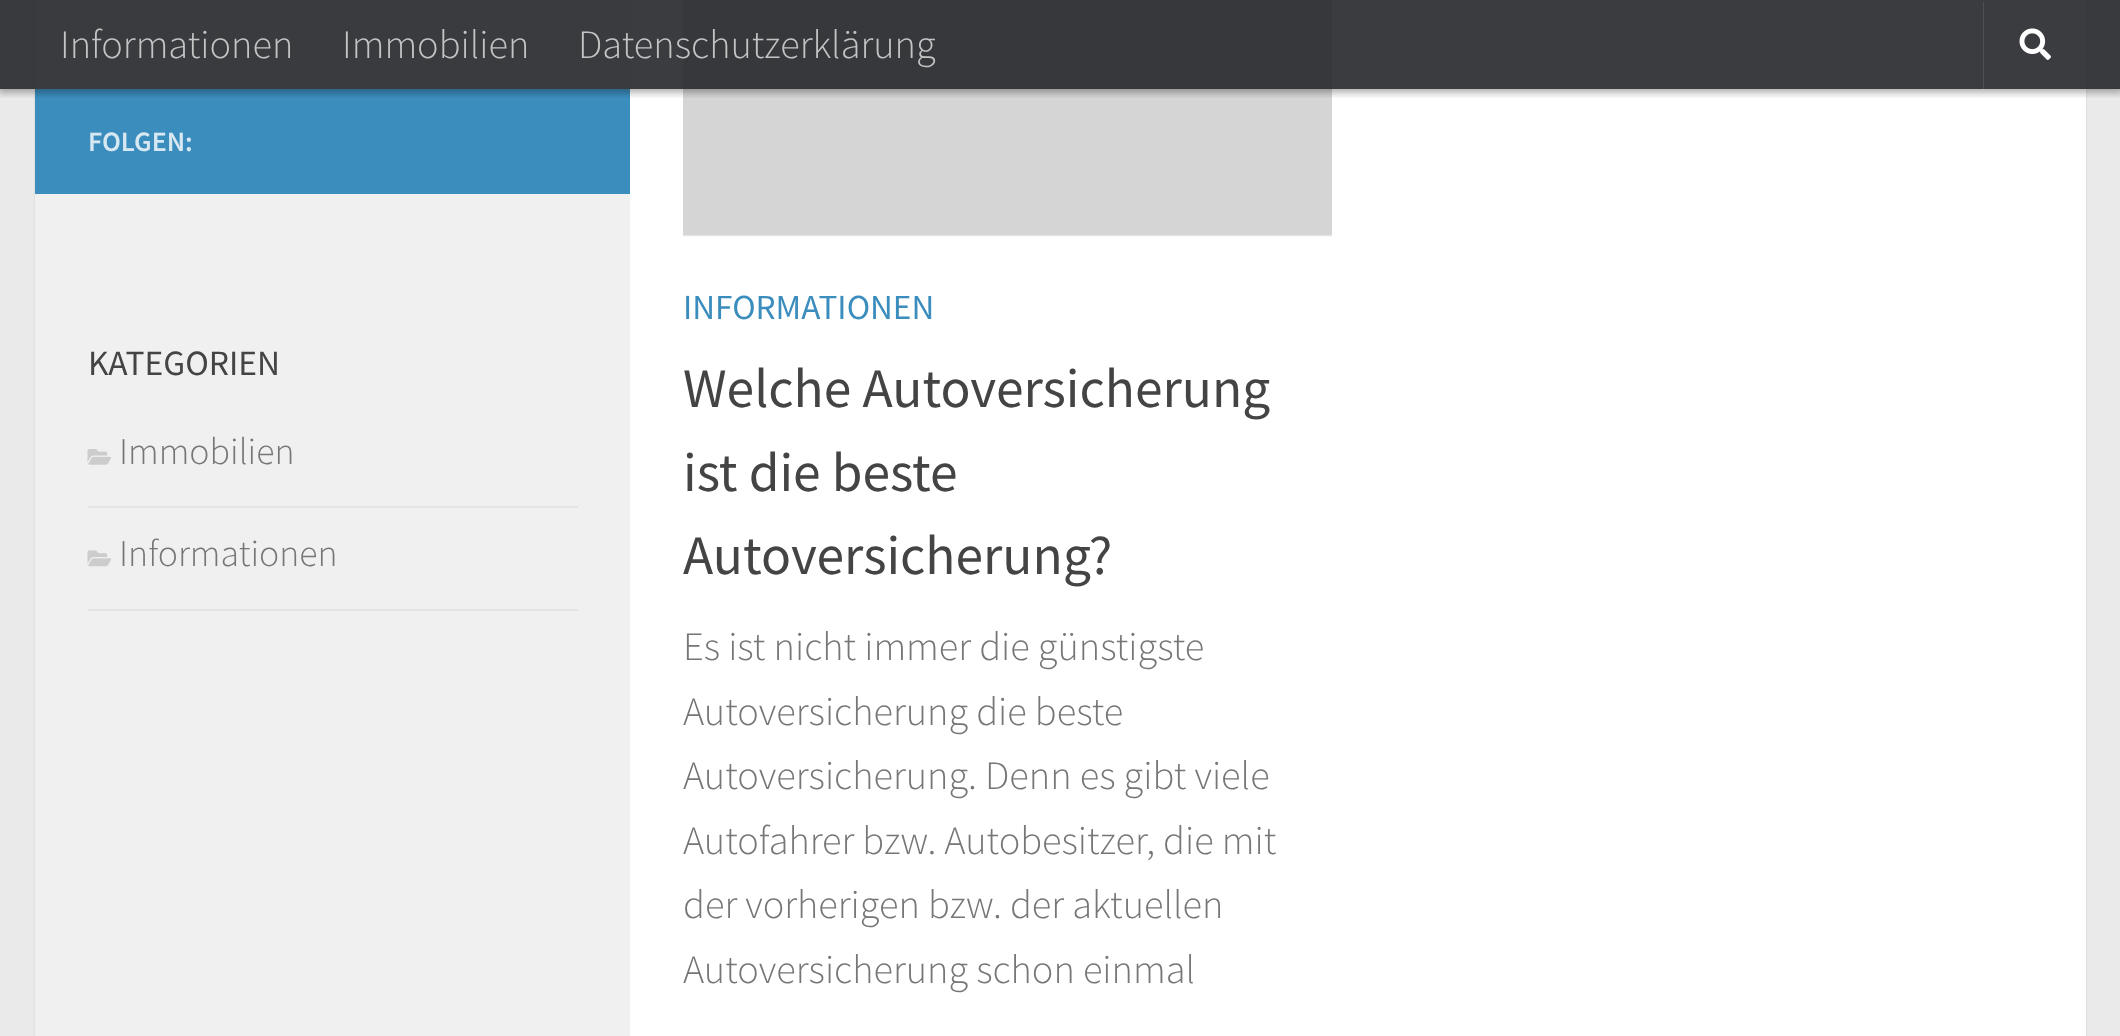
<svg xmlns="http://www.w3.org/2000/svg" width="2120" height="1036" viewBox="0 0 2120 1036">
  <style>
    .t1 { font: 300 40.3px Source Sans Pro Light; fill: #c4c4c5; }
    .t2 { font: 600 28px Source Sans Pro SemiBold; fill: #d8e8f2; }
    .t3 { font: 35.5px Source Sans Pro; fill: #444; }
    .t4 { font: 300 37.75px Source Sans Pro Light; fill: #767676; }
    .t5 { font: 35.25px Source Sans Pro; fill: #3b8dbd; }
    .t6 { font: 55.5px Source Sans Pro; fill: #444; }
    .t7 { font: 300 40.3px Source Sans Pro Light; fill: #767676; }
  </style>
  <defs>
    <clipPath id="clip1"><rect x="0" y="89" width="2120" height="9"/></clipPath>
  </defs>
  <rect width="100%" height="100%" fill="#eaeaea"/>
  <rect x="35" y="-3" width="2051" height="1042" fill="#0000001a" filter="blur(1px)"/>
  <rect x="630" y="0" width="1456" height="1036" fill="#fff"/>
  <rect x="35" y="0" width="595" height="1036" fill="#f0f0f0"/>
  <rect x="35" y="89" width="595" height="105" fill="#3b8dbd"/>
  <image x="683" y="0" width="649" height="237" href="images/4.png"/>
  <g clip-path="url(#clip1)">
    <rect x="-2" y="0" width="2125" height="93" fill="#0000004d" filter="blur(3.5px)"/>
  </g>
  <rect x="0" y="0" width="2120" height="89" fill="#26272be6"/>
  <text x="60" y="58" class="t1">Informationen</text>
  <text x="342" y="58" class="t1">Immobilien</text>
  <text x="578" y="58" class="t1">Datenschutzerklärung</text>
  <rect x="1983" y="2" width="1" height="87" fill="#4f5053"/>
  <image x="2019" y="28" width="32" height="32" href="images/1.png"/>
  <text x="88" y="151" class="t2">FOLGEN:</text>
  <text x="88" y="375" class="t3">KATEGORIEN</text>
  <rect x="88" y="506" width="490" height="2" fill="#e4e4e4"/>
  <image x="87" y="449" width="24" height="16" href="images/2.png"/>
  <text x="119" y="464" class="t4">Immobilien</text>
  <rect x="88" y="609" width="490" height="2" fill="#e4e4e4"/>
  <image x="87" y="550" width="24" height="17" href="images/3.png"/>
  <text x="119" y="566" class="t4">Informationen</text>
  <text x="683" y="319" class="t5">INFORMATIONEN</text>
  <text x="683" y="407" class="t6">Welche Autoversicherung</text>
  <text x="683" y="491" class="t6">ist die beste</text>
  <text x="683" y="574" class="t6">Autoversicherung?</text>
  <text x="683" y="660" class="t7">Es ist nicht immer die günstigste</text>
  <text x="683" y="725" class="t7">Autoversicherung die beste</text>
  <text x="683" y="789" class="t7">Autoversicherung. Denn es gibt viele</text>
  <text x="683" y="854" class="t7">Autofahrer bzw. Autobesitzer, die mit</text>
  <text x="683" y="918" class="t7">der vorherigen bzw. der aktuellen</text>
  <text x="683" y="983" class="t7">Autoversicherung schon einmal</text>
</svg>
